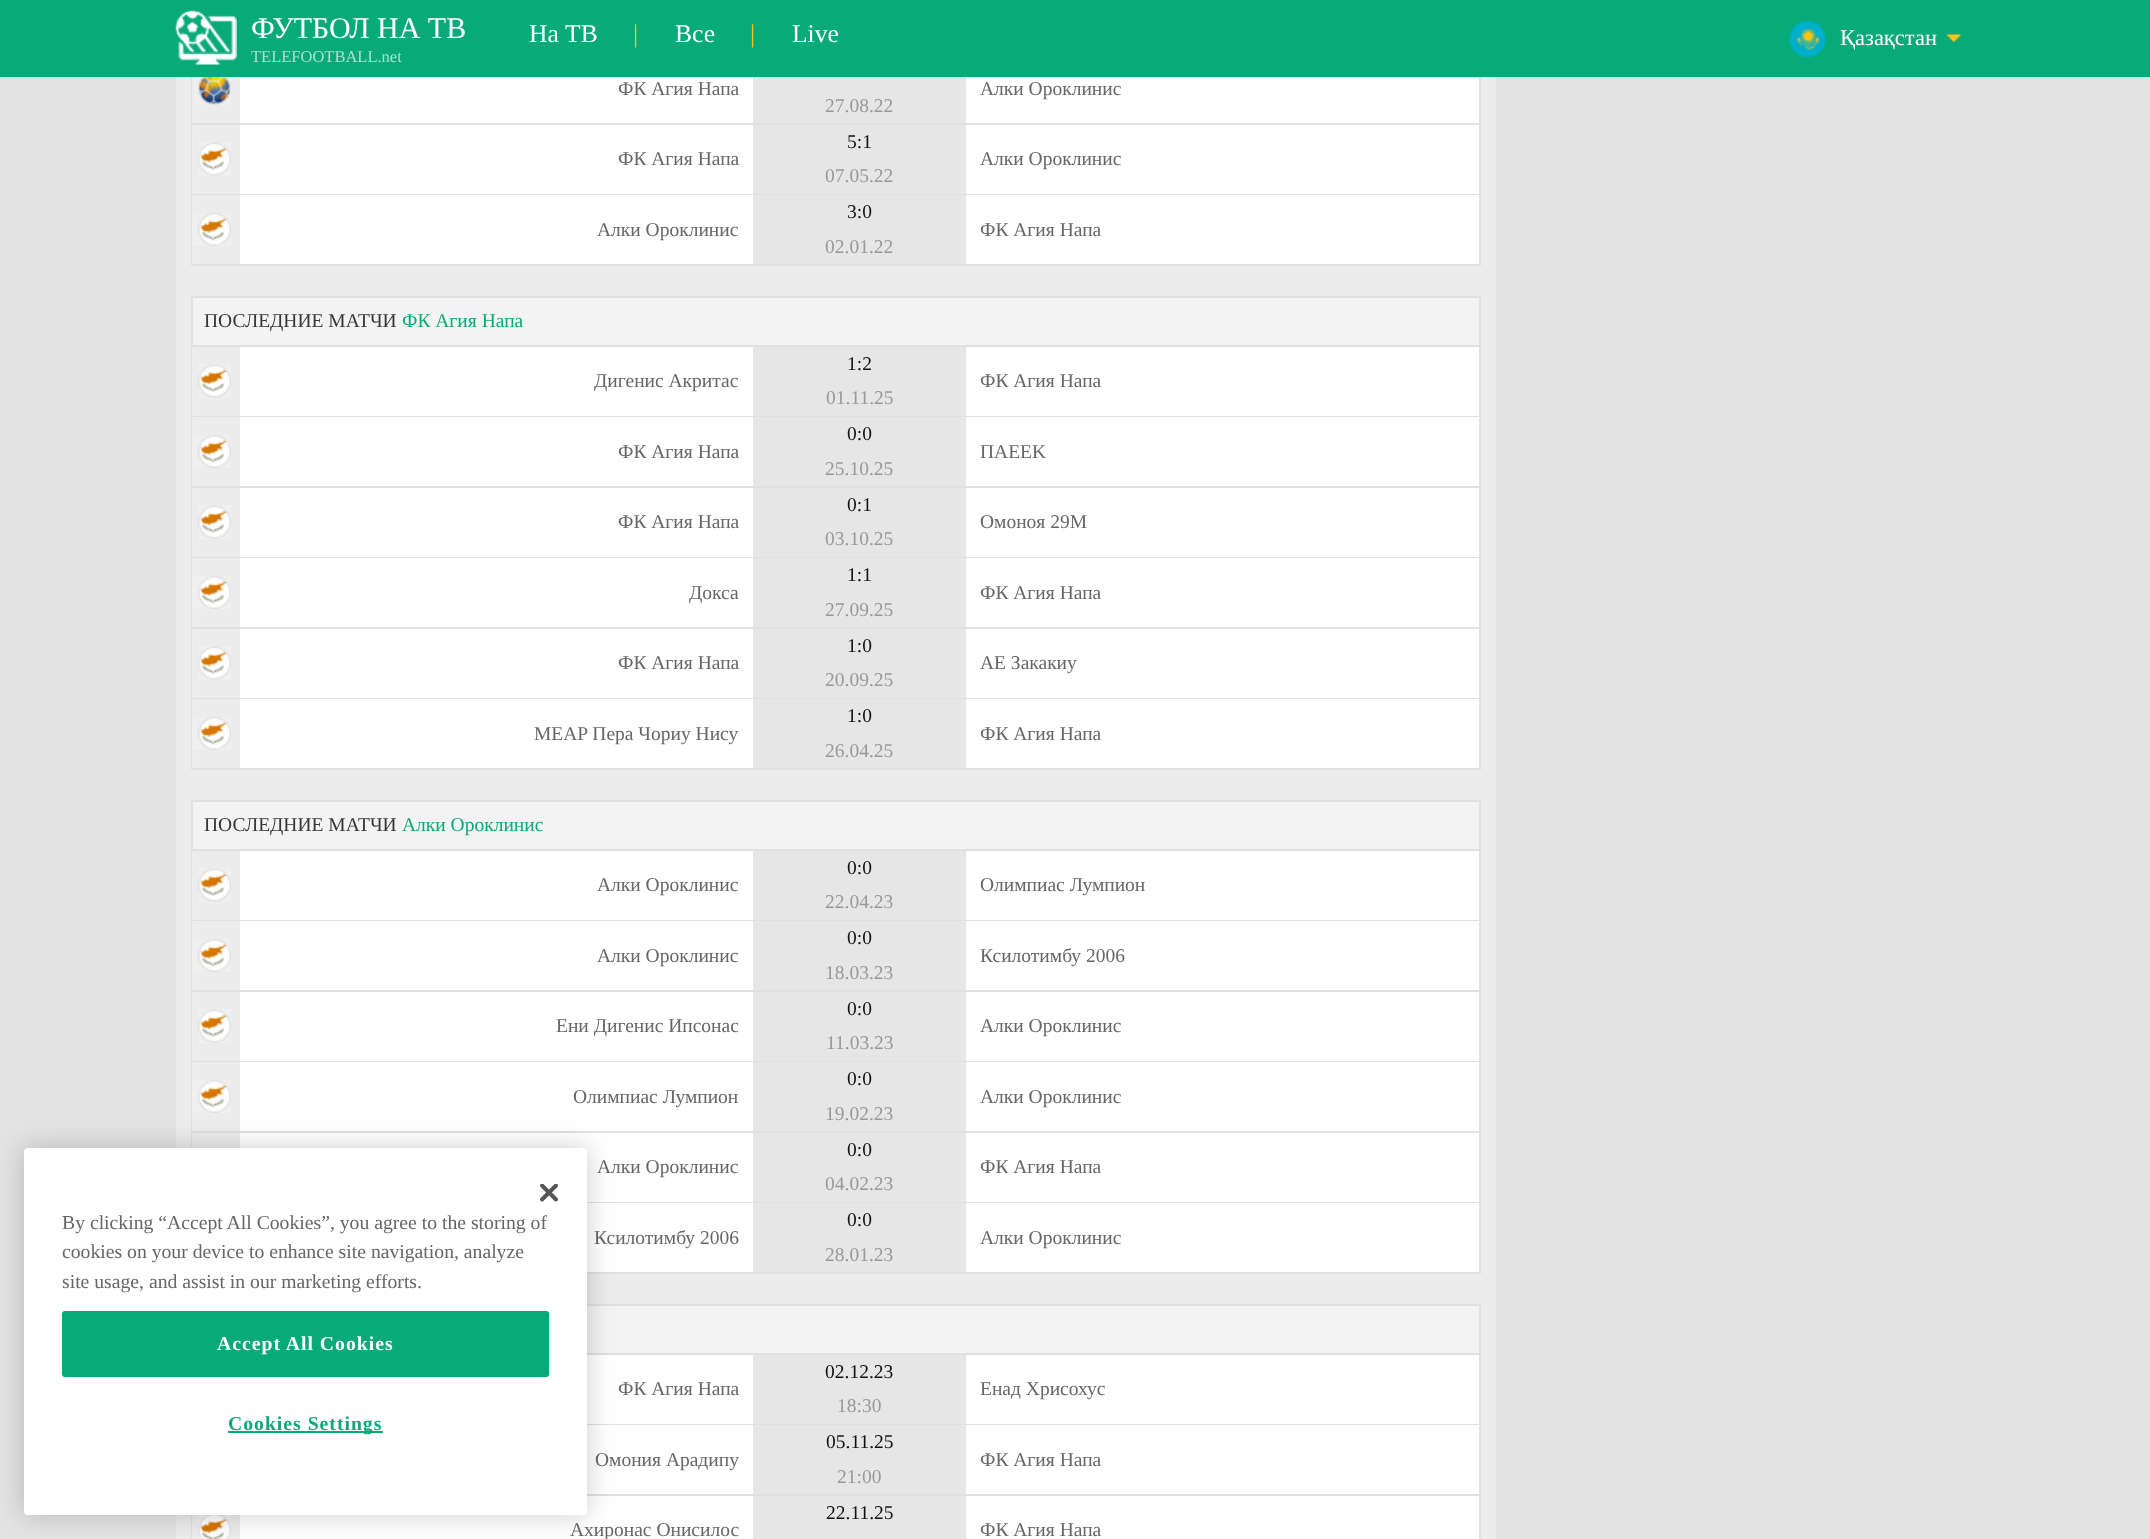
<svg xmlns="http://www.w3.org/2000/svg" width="2150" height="1539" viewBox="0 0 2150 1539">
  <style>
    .t1 { font: 30px Liberation Serif; fill: #fff; }
    .t2 { font: 16.5px Liberation Serif; fill: #a9e1d0; }
    .t3 { font: 25.5px Liberation Serif; fill: #fff; }
    .t4 { font: 25.5px Liberation Serif; fill: #ffc21a; }
    .t5 { font: 22.5px Liberation Serif; fill: #fff; }
    .t6 { font: 19.5px Liberation Serif; fill: #666; }
    .t7 { font: 19.5px Liberation Serif; fill: #999; }
    .t8 { font: 19.5px Liberation Serif; fill: #111; }
    .t9 { font: 19.5px Liberation Serif; fill: #383535; }
    .t10 { font: 19.5px Liberation Serif; fill: #08aa78; }
    .t11 { font: 19.7px Liberation Serif; fill: #666; }
    .t12 { font: bold 19.7px Liberation Serif; letter-spacing: 1px; fill: #fff; }
    .t13 { font: bold 19.7px Liberation Serif; letter-spacing: 1px; fill: #08aa78; }
  </style>
  <rect width="100%" height="100%" fill="#e3e3e3"/>
  <rect x="0" y="0" width="2150" height="77" fill="#08aa78"/>
  <image x="175" y="10" width="62" height="55" href="images/1.png"/>
  <text x="251" y="38" class="t1">ФУТБОЛ НА ТВ</text>
  <text x="251" y="62" class="t2">TELEFOOTBALL.net</text>
  <text x="529" y="42" class="t3">На ТВ</text>
  <text x="633" y="42" class="t4">|</text>
  <text x="675" y="42" class="t3">Все</text>
  <text x="750" y="42" class="t4">|</text>
  <text x="792" y="42" class="t3">Live</text>
  <image x="1789" y="20" width="37" height="38" href="images/2.png"/>
  <image x="1946" y="34" width="15" height="8" href="images/3.png"/>
  <text x="1840" y="45" class="t5">Қазақстан</text>
  <rect x="176" y="77" width="1320" height="1462" fill="#ececec"/>
  <rect x="1479" y="77" width="2" height="189" fill="#e0e0e0"/>
  <rect x="191" y="123" width="1290" height="2" fill="#e0e0e0"/>
  <rect x="191" y="77" width="2" height="48" fill="#e0e0e0"/>
  <rect x="192" y="77" width="1" height="46" fill="#eee"/>
  <image x="194" y="77" width="37" height="28" href="images/4.png"/>
  <rect x="240" y="77" width="1239" height="46" fill="#fff"/>
  <text x="618" y="95" class="t6">ФК Агия Напа</text>
  <text x="980" y="95" class="t6">Алки Ороклинис</text>
  <rect x="753" y="77" width="213" height="46" fill="#e6e6e6"/>
  <text x="825" y="112" class="t7">27.08.22</text>
  <rect x="191" y="194" width="1290" height="1" fill="#e0e0e0"/>
  <rect x="191" y="125" width="2" height="70" fill="#e0e0e0"/>
  <rect x="192" y="125" width="1" height="69" fill="#eee"/>
  <image x="198" y="142" width="33" height="34" href="images/5.png"/>
  <rect x="240" y="125" width="1239" height="69" fill="#fff"/>
  <text x="618" y="165" class="t6">ФК Агия Напа</text>
  <rect x="753" y="125" width="213" height="69" fill="#e6e6e6"/>
  <text x="847" y="148" class="t8">5:1</text>
  <text x="825" y="182" class="t7">07.05.22</text>
  <text x="980" y="165" class="t6">Алки Ороклинис</text>
  <rect x="191" y="264" width="1290" height="2" fill="#e0e0e0"/>
  <rect x="191" y="195" width="2" height="71" fill="#e0e0e0"/>
  <rect x="192" y="195" width="1" height="69" fill="#eee"/>
  <image x="192" y="213" width="39" height="33" href="images/6.png"/>
  <rect x="240" y="195" width="1239" height="69" fill="#fff"/>
  <text x="597" y="236" class="t6">Алки Ороклинис</text>
  <rect x="753" y="195" width="213" height="69" fill="#e6e6e6"/>
  <text x="847" y="218" class="t8">3:0</text>
  <text x="825" y="253" class="t7">02.01.22</text>
  <text x="980" y="236" class="t6">ФК Агия Напа</text>
  <rect x="192" y="297" width="1288" height="49" fill="#f3f3f3" stroke="#e0e0e0" stroke-width="2"/>
  <text x="204" y="327" class="t9">ПОСЛЕДНИЕ МАТЧИ</text>
  <text x="402" y="327" class="t10">ФК Агия Напа</text>
  <rect x="1479" y="347" width="2" height="423" fill="#e0e0e0"/>
  <rect x="191" y="416" width="1290" height="1" fill="#e0e0e0"/>
  <rect x="191" y="347" width="2" height="70" fill="#e0e0e0"/>
  <rect x="192" y="347" width="1" height="69" fill="#eee"/>
  <image x="198" y="364" width="33" height="34" href="images/5.png"/>
  <rect x="240" y="347" width="1239" height="69" fill="#fff"/>
  <text x="594" y="387" class="t6">Дигенис Акритас</text>
  <rect x="753" y="347" width="213" height="69" fill="#e6e6e6"/>
  <text x="847" y="370" class="t8">1:2</text>
  <text x="826" y="404" class="t7">01.11.25</text>
  <text x="980" y="387" class="t6">ФК Агия Напа</text>
  <rect x="191" y="486" width="1290" height="2" fill="#e0e0e0"/>
  <rect x="191" y="417" width="2" height="71" fill="#e0e0e0"/>
  <rect x="192" y="417" width="1" height="69" fill="#eee"/>
  <image x="192" y="435" width="39" height="33" href="images/6.png"/>
  <rect x="240" y="417" width="1239" height="69" fill="#fff"/>
  <text x="618" y="458" class="t6">ФК Агия Напа</text>
  <rect x="753" y="417" width="213" height="69" fill="#e6e6e6"/>
  <text x="847" y="440" class="t8">0:0</text>
  <text x="825" y="475" class="t7">25.10.25</text>
  <text x="980" y="458" class="t6">ΠΑΕΕΚ</text>
  <rect x="191" y="557" width="1290" height="1" fill="#e0e0e0"/>
  <rect x="191" y="488" width="2" height="70" fill="#e0e0e0"/>
  <rect x="192" y="488" width="1" height="69" fill="#eee"/>
  <image x="198" y="505" width="33" height="34" href="images/5.png"/>
  <rect x="240" y="488" width="1239" height="69" fill="#fff"/>
  <text x="618" y="528" class="t6">ФК Агия Напа</text>
  <rect x="753" y="488" width="213" height="69" fill="#e6e6e6"/>
  <text x="847" y="511" class="t8">0:1</text>
  <text x="825" y="545" class="t7">03.10.25</text>
  <text x="980" y="528" class="t6">Омонoя 29М</text>
  <rect x="191" y="627" width="1290" height="2" fill="#e0e0e0"/>
  <rect x="191" y="558" width="2" height="71" fill="#e0e0e0"/>
  <rect x="192" y="558" width="1" height="69" fill="#eee"/>
  <image x="192" y="576" width="39" height="33" href="images/6.png"/>
  <rect x="240" y="558" width="1239" height="69" fill="#fff"/>
  <text x="689" y="599" class="t6">Докса</text>
  <rect x="753" y="558" width="213" height="69" fill="#e6e6e6"/>
  <text x="847" y="581" class="t8">1:1</text>
  <text x="825" y="616" class="t7">27.09.25</text>
  <text x="980" y="599" class="t6">ФК Агия Напа</text>
  <rect x="191" y="698" width="1290" height="1" fill="#e0e0e0"/>
  <rect x="191" y="629" width="2" height="70" fill="#e0e0e0"/>
  <rect x="192" y="629" width="1" height="69" fill="#eee"/>
  <image x="198" y="646" width="33" height="34" href="images/5.png"/>
  <rect x="240" y="629" width="1239" height="69" fill="#fff"/>
  <text x="618" y="669" class="t6">ФК Агия Напа</text>
  <rect x="753" y="629" width="213" height="69" fill="#e6e6e6"/>
  <text x="847" y="652" class="t8">1:0</text>
  <text x="825" y="686" class="t7">20.09.25</text>
  <text x="980" y="669" class="t6">АЕ Закакиу</text>
  <rect x="191" y="768" width="1290" height="2" fill="#e0e0e0"/>
  <rect x="191" y="699" width="2" height="71" fill="#e0e0e0"/>
  <rect x="192" y="699" width="1" height="69" fill="#eee"/>
  <image x="192" y="717" width="39" height="33" href="images/6.png"/>
  <rect x="240" y="699" width="1239" height="69" fill="#fff"/>
  <text x="534" y="740" class="t6">MEAP Пера Чориу Нису</text>
  <rect x="753" y="699" width="213" height="69" fill="#e6e6e6"/>
  <text x="847" y="722" class="t8">1:0</text>
  <text x="825" y="757" class="t7">26.04.25</text>
  <text x="980" y="740" class="t6">ФК Агия Напа</text>
  <rect x="192" y="801" width="1288" height="49" fill="#f3f3f3" stroke="#e0e0e0" stroke-width="2"/>
  <text x="204" y="831" class="t9">ПОСЛЕДНИЕ МАТЧИ</text>
  <text x="402" y="831" class="t10">Алки Ороклинис</text>
  <rect x="1479" y="851" width="2" height="423" fill="#e0e0e0"/>
  <rect x="191" y="920" width="1290" height="1" fill="#e0e0e0"/>
  <rect x="191" y="851" width="2" height="70" fill="#e0e0e0"/>
  <rect x="192" y="851" width="1" height="69" fill="#eee"/>
  <image x="198" y="868" width="33" height="34" href="images/5.png"/>
  <rect x="240" y="851" width="1239" height="69" fill="#fff"/>
  <text x="597" y="891" class="t6">Алки Ороклинис</text>
  <rect x="753" y="851" width="213" height="69" fill="#e6e6e6"/>
  <text x="847" y="874" class="t8">0:0</text>
  <text x="825" y="908" class="t7">22.04.23</text>
  <text x="980" y="891" class="t6">Олимпиас Лумпион</text>
  <rect x="191" y="990" width="1290" height="2" fill="#e0e0e0"/>
  <rect x="191" y="921" width="2" height="71" fill="#e0e0e0"/>
  <rect x="192" y="921" width="1" height="69" fill="#eee"/>
  <image x="192" y="939" width="39" height="33" href="images/6.png"/>
  <rect x="240" y="921" width="1239" height="69" fill="#fff"/>
  <text x="597" y="962" class="t6">Алки Ороклинис</text>
  <rect x="753" y="921" width="213" height="69" fill="#e6e6e6"/>
  <text x="847" y="944" class="t8">0:0</text>
  <text x="825" y="979" class="t7">18.03.23</text>
  <text x="980" y="962" class="t6">Ксилотимбу 2006</text>
  <rect x="191" y="1061" width="1290" height="1" fill="#e0e0e0"/>
  <rect x="191" y="992" width="2" height="70" fill="#e0e0e0"/>
  <rect x="192" y="992" width="1" height="69" fill="#eee"/>
  <image x="198" y="1009" width="33" height="34" href="images/5.png"/>
  <rect x="240" y="992" width="1239" height="69" fill="#fff"/>
  <text x="556" y="1032" class="t6">Ени Дигенис Ипсонас</text>
  <rect x="753" y="992" width="213" height="69" fill="#e6e6e6"/>
  <text x="847" y="1015" class="t8">0:0</text>
  <text x="826" y="1049" class="t7">11.03.23</text>
  <text x="980" y="1032" class="t6">Алки Ороклинис</text>
  <rect x="191" y="1131" width="1290" height="2" fill="#e0e0e0"/>
  <rect x="191" y="1062" width="2" height="71" fill="#e0e0e0"/>
  <rect x="192" y="1062" width="1" height="69" fill="#eee"/>
  <image x="192" y="1080" width="39" height="33" href="images/6.png"/>
  <rect x="240" y="1062" width="1239" height="69" fill="#fff"/>
  <text x="573" y="1103" class="t6">Олимпиас Лумпион</text>
  <rect x="753" y="1062" width="213" height="69" fill="#e6e6e6"/>
  <text x="847" y="1085" class="t8">0:0</text>
  <text x="825" y="1120" class="t7">19.02.23</text>
  <text x="980" y="1103" class="t6">Алки Ороклинис</text>
  <rect x="587" y="1202" width="894" height="1" fill="#e0e0e0"/>
  <rect x="191" y="1133" width="1" height="15" fill="#e0e0e0"/>
  <rect x="240" y="1133" width="1239" height="69" fill="#fff"/>
  <text x="597" y="1173" class="t6">Алки Ороклинис</text>
  <rect x="753" y="1133" width="213" height="69" fill="#e6e6e6"/>
  <text x="847" y="1156" class="t8">0:0</text>
  <text x="825" y="1190" class="t7">04.02.23</text>
  <text x="980" y="1173" class="t6">ФК Агия Напа</text>
  <rect x="587" y="1272" width="894" height="2" fill="#e0e0e0"/>
  <rect x="587" y="1203" width="892" height="69" fill="#fff"/>
  <text x="594" y="1244" class="t6">Ксилотимбу 2006</text>
  <rect x="753" y="1203" width="213" height="69" fill="#e6e6e6"/>
  <text x="847" y="1226" class="t8">0:0</text>
  <text x="825" y="1261" class="t7">28.01.23</text>
  <text x="980" y="1244" class="t6">Алки Ороклинис</text>
  <rect x="587" y="1306" width="892" height="47" fill="#f3f3f3"/>
  <rect x="192" y="1305" width="1288" height="49" fill="none" stroke="#e0e0e0" stroke-width="2"/>
  <rect x="1479" y="1355" width="2" height="184" fill="#e0e0e0"/>
  <rect x="587" y="1424" width="894" height="1" fill="#e0e0e0"/>
  <rect x="587" y="1355" width="892" height="69" fill="#fff"/>
  <text x="618" y="1395" class="t6">ФК Агия Напа</text>
  <rect x="753" y="1355" width="213" height="69" fill="#e6e6e6"/>
  <text x="825" y="1378" class="t8">02.12.23</text>
  <text x="837" y="1412" class="t7">18:30</text>
  <text x="980" y="1395" class="t6">Енад Хрисохус</text>
  <rect x="587" y="1494" width="894" height="2" fill="#e0e0e0"/>
  <rect x="587" y="1425" width="892" height="69" fill="#fff"/>
  <text x="595" y="1466" class="t6">Омония Арадипу</text>
  <rect x="753" y="1425" width="213" height="69" fill="#e6e6e6"/>
  <text x="826" y="1448" class="t8">05.11.25</text>
  <text x="837" y="1483" class="t7">21:00</text>
  <text x="980" y="1466" class="t6">ФК Агия Напа</text>
  <rect x="191" y="1515" width="1" height="24" fill="#e0e0e0"/>
  <image x="198" y="1515" width="33" height="24" href="images/7.png"/>
  <rect x="240" y="1496" width="1239" height="43" fill="#fff"/>
  <rect x="753" y="1496" width="213" height="43" fill="#e6e6e6"/>
  <text x="826" y="1519" class="t8">22.11.25</text>
  <text x="570" y="1536" class="t6">Ахиронас Онисилос</text>
  <text x="980" y="1536" class="t6">ФК Агия Напа</text>
  <rect x="24" y="1148" width="563" height="367" rx="4" fill="#00000033" filter="blur(13.5px)"/>
  <rect x="24" y="1148" width="563" height="367" rx="4" fill="#fff"/>
  <image x="540" y="1184" width="18" height="18" href="images/8.png"/>
  <text x="62" y="1229" class="t11">By clicking “Accept All Cookies”, you agree to the storing of</text>
  <text x="62" y="1258" class="t11">cookies on your device to enhance site navigation, analyze</text>
  <text x="62" y="1288" class="t11">site usage, and assist in our marketing efforts.</text>
  <rect x="63" y="1312" width="485" height="64" rx="2" fill="#08aa78" stroke="#08aa78" stroke-width="2"/>
  <text x="217" y="1350" class="t12">Accept All Cookies</text>
  <rect x="228" y="1431" width="155" height="2" fill="#08aa78"/>
  <text x="228" y="1430" class="t13">Cookies Settings</text>
</svg>
